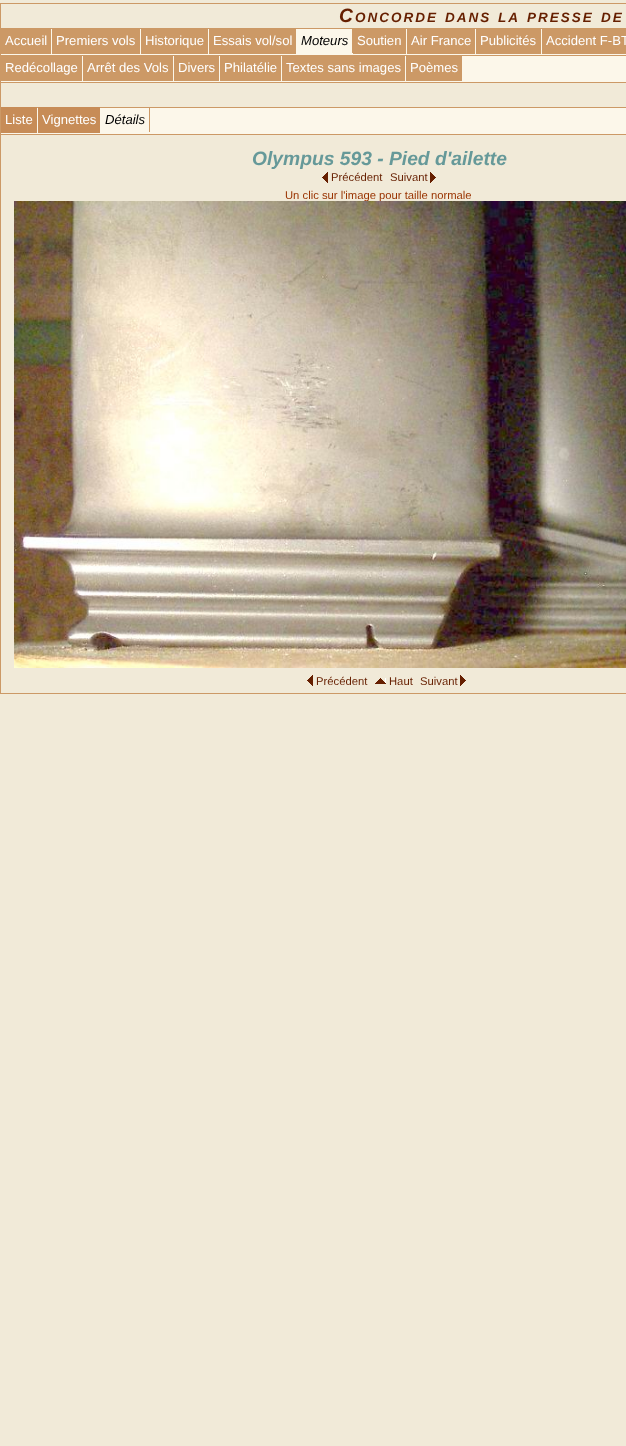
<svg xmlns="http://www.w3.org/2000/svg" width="626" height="1446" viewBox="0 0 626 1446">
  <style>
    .t1 { font: italic bold 19.25px Liberation Sans; letter-spacing: 2px; fill: #661f00; }
    .t2 { font: italic bold 13.5px Liberation Sans; letter-spacing: 2px; fill: #661f00; }
    .t3 { font: 13.1px Liberation Sans; fill: #fff; }
    .t4 { font: italic 13.1px Liberation Sans; fill: #000; }
    .t5 { font: italic bold 19.25px Liberation Sans; fill: #699; }
    .t6 { font: 11.25px Liberation Sans; fill: #661f00; }
    .t7 { font: 11.25px Liberation Sans; fill: #930; }
  </style>
  <rect width="100%" height="100%" fill="#f1ead8"/>
  <rect x="0" y="3" width="626" height="1" fill="#c96"/>
  <rect x="0" y="3" width="1" height="132" fill="#c96"/>
  <text x="339" y="22" class="t1">C</text>
  <text x="355" y="22" class="t2">ONCORDE</text>
  <text x="445" y="22" class="t2">DANS</text>
  <text x="498" y="22" class="t2">LA</text>
  <text x="527" y="22" class="t2">PRESSE</text>
  <text x="601" y="22" class="t2">DE</text>
  <rect x="1" y="29" width="625" height="26" fill="#fcf7ea"/>
  <rect x="51" y="28" width="491" height="1" fill="#c96"/>
  <rect x="82" y="55" width="544" height="1" fill="#c96"/>
  <rect x="1" y="28" width="50" height="26" fill="#c96"/>
  <text x="5" y="45" class="t3">Accueil</text>
  <rect x="52" y="29" width="88" height="25" fill="#c96"/>
  <text x="56" y="45" class="t3">Premiers vols</text>
  <rect x="141" y="29" width="67" height="25" fill="#c96"/>
  <text x="145" y="45" class="t3">Historique</text>
  <rect x="209" y="29" width="87" height="25" fill="#c96"/>
  <text x="213" y="45" class="t3">Essais vol/sol</text>
  <text x="301" y="45" class="t4">Moteurs</text>
  <rect x="352" y="29" width="1" height="24" fill="#c96"/>
  <rect x="353" y="29" width="53" height="25" fill="#c96"/>
  <text x="357" y="45" class="t3">Soutien</text>
  <rect x="407" y="29" width="68" height="25" fill="#c96"/>
  <text x="411" y="45" class="t3">Air France</text>
  <rect x="476" y="29" width="65" height="25" fill="#c96"/>
  <text x="480" y="45" class="t3">Publicités</text>
  <rect x="542" y="28" width="84" height="26" fill="#c96"/>
  <text x="546" y="45" class="t3">Accident F-BT</text>
  <rect x="1" y="56" width="625" height="26" fill="#fcf7ea"/>
  <rect x="1" y="82" width="625" height="1" fill="#c96"/>
  <rect x="1" y="55" width="81" height="26" fill="#c96"/>
  <text x="5" y="72" class="t3">Redécollage</text>
  <rect x="83" y="56" width="90" height="25" fill="#c96"/>
  <text x="87" y="72" class="t3">Arrêt des Vols</text>
  <rect x="174" y="56" width="45" height="25" fill="#c96"/>
  <text x="178" y="72" class="t3">Divers</text>
  <rect x="220" y="56" width="61" height="25" fill="#c96"/>
  <text x="224" y="72" class="t3">Philatélie</text>
  <rect x="282" y="56" width="123" height="25" fill="#c96"/>
  <text x="286" y="72" class="t3">Textes sans images</text>
  <rect x="406" y="56" width="56" height="25" fill="#c96"/>
  <text x="410" y="72" class="t3">Poèmes</text>
  <rect x="1" y="108" width="625" height="26" fill="#fcf7ea"/>
  <rect x="37" y="107" width="589" height="1" fill="#c96"/>
  <rect x="1" y="134" width="625" height="1" fill="#c96"/>
  <rect x="1" y="107" width="36" height="26" fill="#c78c57"/>
  <text x="5" y="124" class="t3">Liste</text>
  <rect x="38" y="107" width="62" height="26" fill="#c78c57"/>
  <text x="42" y="124" class="t3">Vignettes</text>
  <text x="105" y="124" class="t4">Détails</text>
  <rect x="149" y="108" width="1" height="24" fill="#c96"/>
  <rect x="0" y="693" width="626" height="1" fill="#c96"/>
  <rect x="0" y="135" width="1" height="559" fill="#c96"/>
  <text x="252" y="165" class="t5">Olympus 593 - Pied d'ailette</text>
  <image x="322" y="172" width="6" height="11" href="images/1.png"/>
  <text x="331" y="181" class="t6">Précédent</text>
  <text x="390" y="181" class="t6">Suivant</text>
  <image x="430" y="172" width="6" height="11" href="images/2.png"/>
  <text x="285" y="199" class="t7">Un clic sur l'image pour taille normale</text>
  <image x="14" y="201" width="612" height="467" href="images/3.png"/>
  <image x="307" y="675" width="6" height="11" href="images/1.png"/>
  <text x="316" y="685" class="t6">Précédent</text>
  <image x="375" y="678" width="11" height="6" href="images/4.png"/>
  <text x="389" y="685" class="t6">Haut</text>
  <text x="420" y="685" class="t6">Suivant</text>
  <image x="460" y="675" width="6" height="11" href="images/2.png"/>
</svg>
